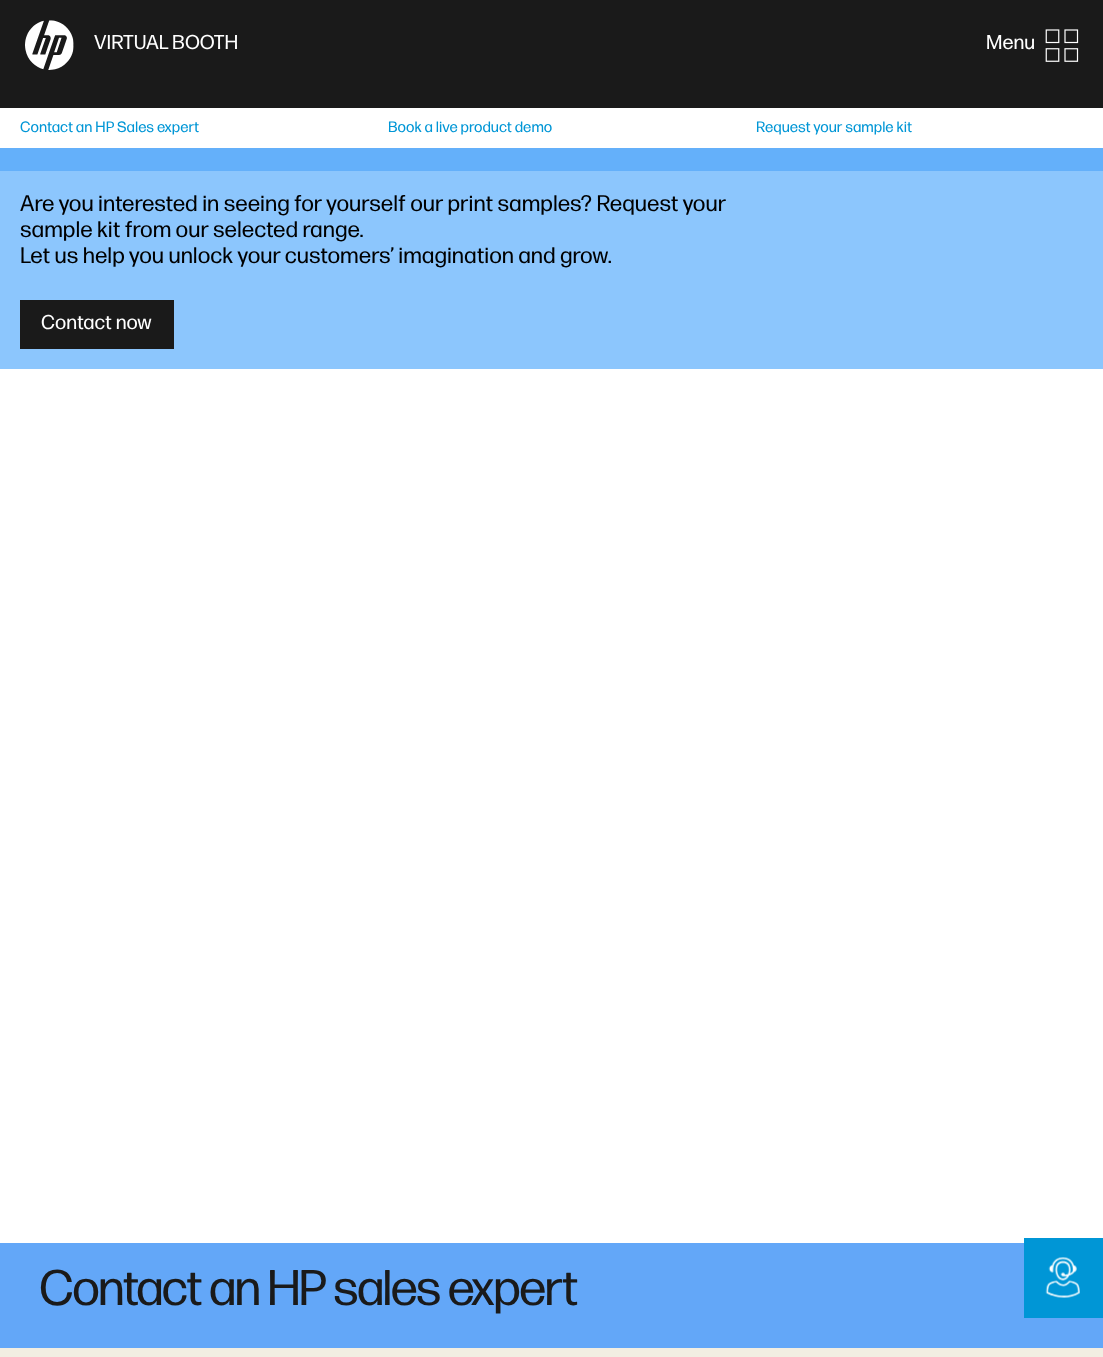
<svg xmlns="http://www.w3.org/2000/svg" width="1103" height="1357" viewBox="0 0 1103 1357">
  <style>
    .t1 { font: 20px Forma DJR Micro; fill: #fff; }
    .t2 { font: 15px Forma DJR Micro; fill: #0096d6; }
    .t3 { font: 22.5px Forma DJR Micro; fill: #000; }
    .t4 { font: 50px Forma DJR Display; fill: #1a1a1a; }
  </style>
  <rect width="100%" height="100%" fill="#fff"/>
  <rect x="0" y="0" width="1103" height="108" fill="#1a1a1a"/>
  <image x="25" y="20" width="49" height="50" href="images/1.png"/>
  <text x="94" y="49" class="t1">VIRTUAL BOOTH</text>
  <text x="986" y="49" class="t1">Menu</text>
  <image x="1045" y="29" width="34" height="33" href="images/2.png"/>
  <text x="20" y="132" class="t2">Contact an HP Sales expert</text>
  <text x="388" y="132" class="t2">Book a live product demo</text>
  <text x="756" y="132" class="t2">Request your sample kit</text>
  <rect x="0" y="1243" width="1103" height="105" fill="#63a7f8"/>
  <rect x="1024" y="1238" width="79" height="80" fill="#0096d6"/>
  <image x="1045" y="1257" width="35" height="41" href="images/3.png"/>
  <rect x="0" y="148" width="1103" height="23" fill="#64b0fa"/>
  <rect x="0" y="171" width="1103" height="198" fill="#8cc6fd"/>
  <text x="20" y="211" class="t3">Are you interested in seeing for yourself our print samples? Request your</text>
  <text x="20" y="237" class="t3">sample kit from our selected range.</text>
  <text x="20" y="263" class="t3">Let us help you unlock your customers’ imagination and grow.</text>
  <rect x="20" y="300" width="154" height="49" fill="#1a1a1a"/>
  <text x="41" y="329" class="t1">Contact now</text>
  <rect x="0" y="1348" width="1103" height="9" fill="#f2eee2"/>
  <text x="40" y="1305" class="t4">Contact an HP sales expert</text>
</svg>
